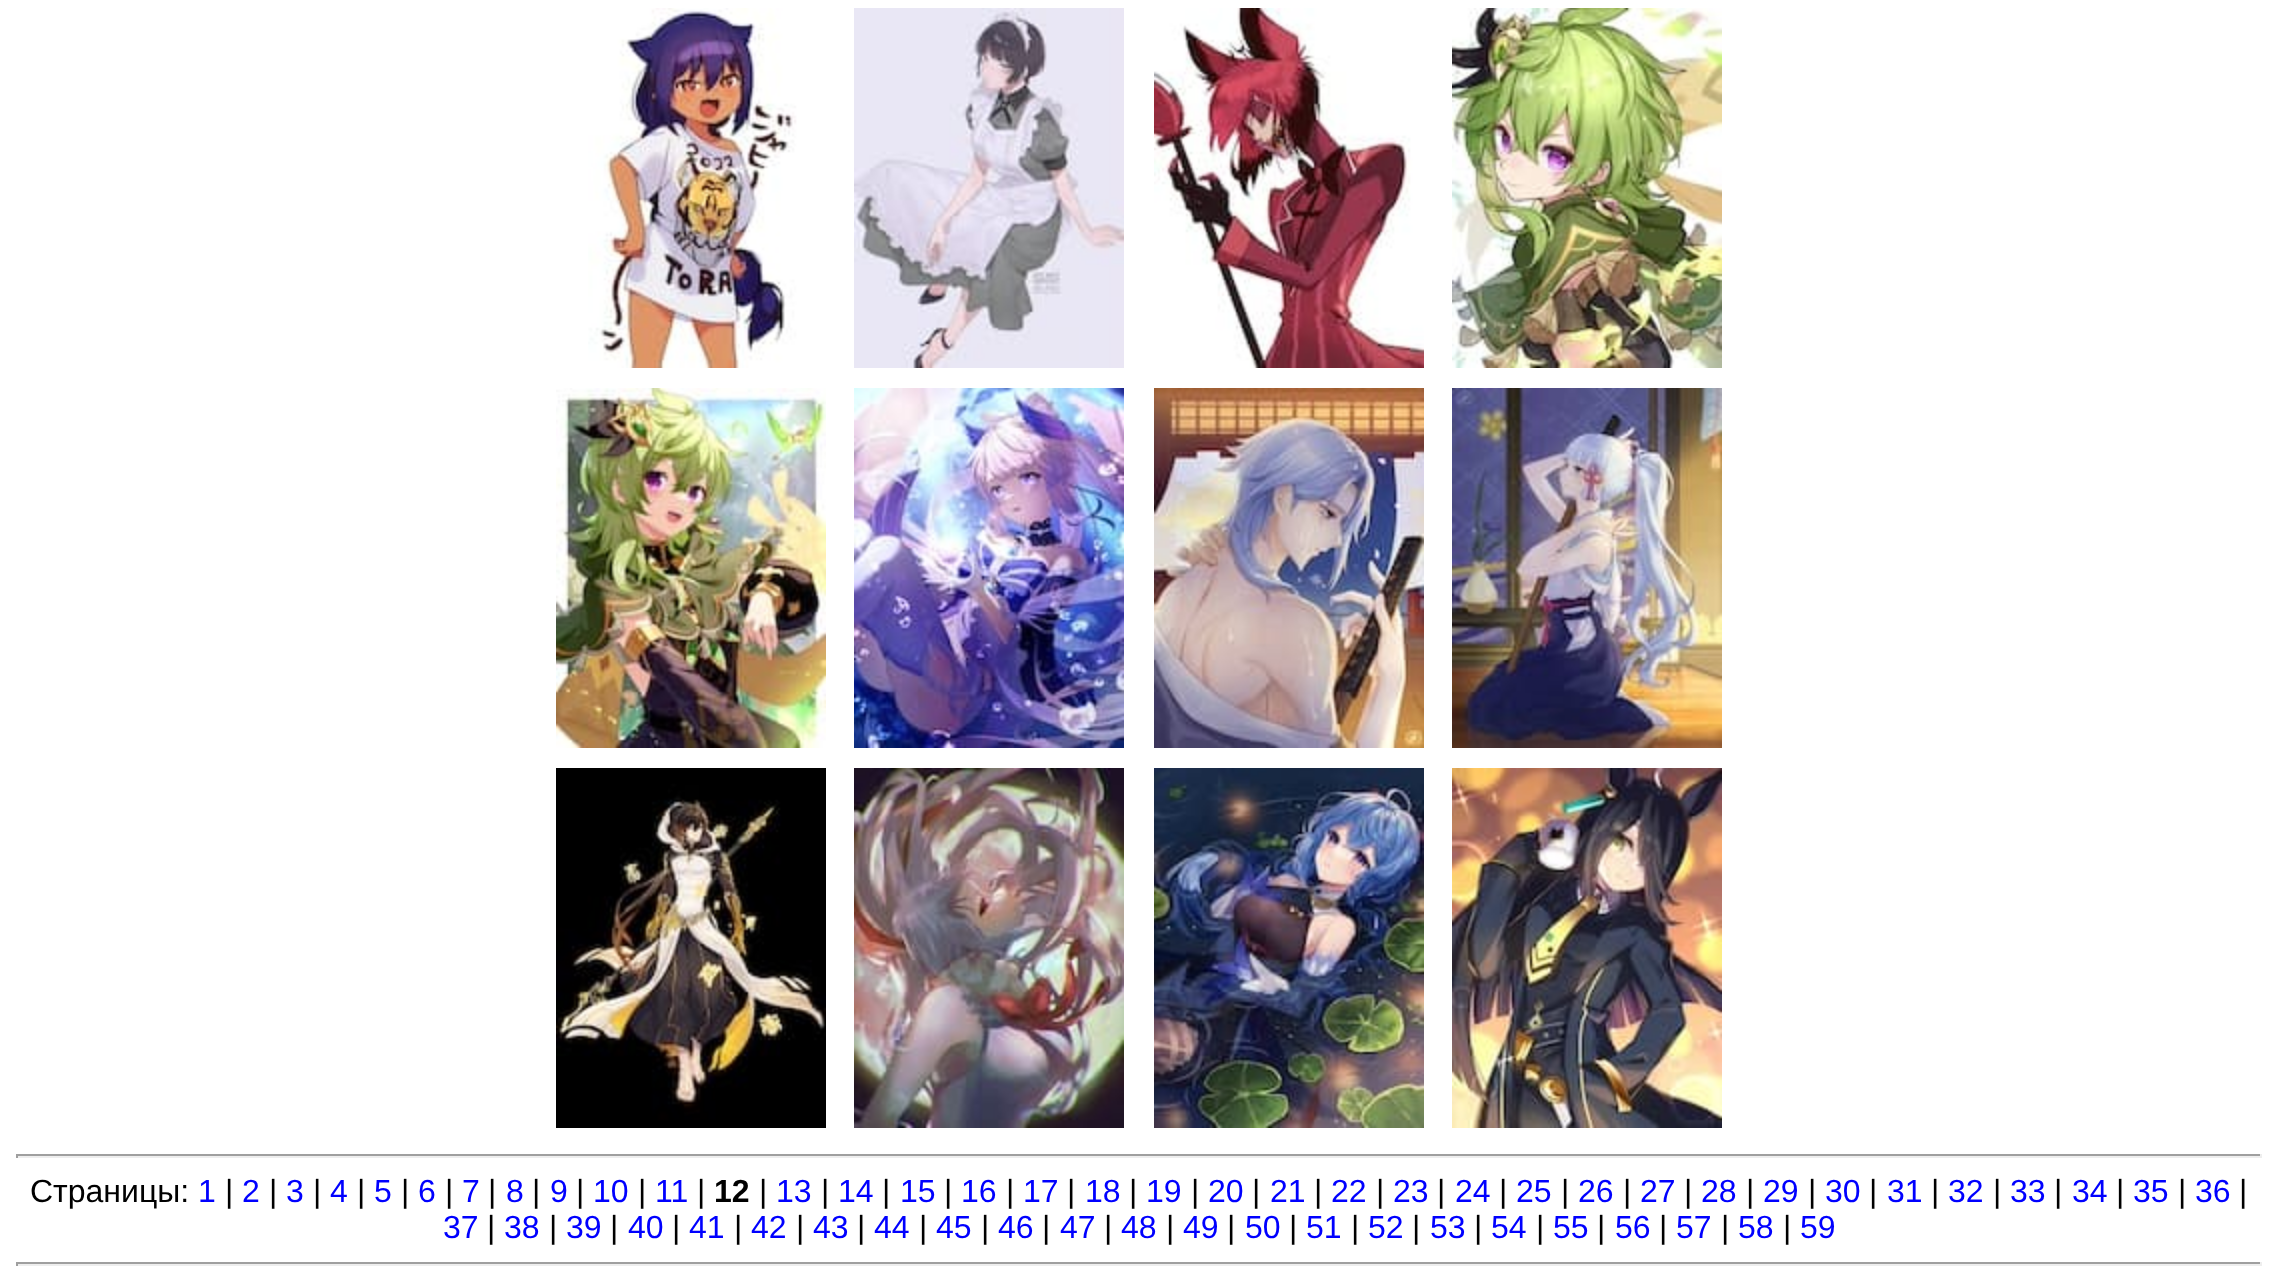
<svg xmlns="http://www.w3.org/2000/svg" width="2278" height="1273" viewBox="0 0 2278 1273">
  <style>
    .t1 { font: 32px Liberation Sans; fill: #000; }
    .t2 { font: 32px Liberation Sans; fill: #00f; }
    .t3 { font: bold 32px Liberation Sans; fill: #000; }
  </style>
  <rect width="100%" height="100%" fill="#fff"/>
  <image x="588" y="8" width="209" height="360" href="images/1.png"/>
  <image x="854" y="8" width="270" height="360" href="images/2.png"/>
  <image x="1154" y="8" width="270" height="360" href="images/3.png"/>
  <image x="1452" y="8" width="270" height="360" href="images/4.png"/>
  <image x="556" y="388" width="270" height="360" href="images/5.png"/>
  <image x="854" y="388" width="270" height="360" href="images/6.png"/>
  <image x="1154" y="388" width="270" height="360" href="images/7.png"/>
  <image x="1452" y="388" width="270" height="360" href="images/8.png"/>
  <image x="556" y="768" width="270" height="360" href="images/9.png"/>
  <image x="854" y="768" width="270" height="360" href="images/10.png"/>
  <image x="1154" y="768" width="270" height="360" href="images/11.png"/>
  <image x="1452" y="768" width="270" height="360" href="images/12.png"/>
  <rect x="16" y="1154" width="2246" height="2" fill="#9f9f9f"/>
  <rect x="2260" y="1154" width="2" height="4" fill="#eee"/>
  <rect x="16" y="1156" width="2246" height="2" fill="#eee"/>
  <rect x="16" y="1154" width="2" height="4" fill="#9f9f9f"/>
  <text x="30" y="1202" class="t1">Страницы:</text>
  <text x="198" y="1202" class="t2">1</text>
  <text x="225" y="1202" class="t1">|</text>
  <text x="242" y="1202" class="t2">2</text>
  <text x="269" y="1202" class="t1">|</text>
  <text x="286" y="1202" class="t2">3</text>
  <text x="313" y="1202" class="t1">|</text>
  <text x="330" y="1202" class="t2">4</text>
  <text x="357" y="1202" class="t1">|</text>
  <text x="374" y="1202" class="t2">5</text>
  <text x="401" y="1202" class="t1">|</text>
  <text x="418" y="1202" class="t2">6</text>
  <text x="445" y="1202" class="t1">|</text>
  <text x="462" y="1202" class="t2">7</text>
  <text x="488" y="1202" class="t1">|</text>
  <text x="506" y="1202" class="t2">8</text>
  <text x="532" y="1202" class="t1">|</text>
  <text x="550" y="1202" class="t2">9</text>
  <text x="576" y="1202" class="t1">|</text>
  <text x="593" y="1202" class="t2">10</text>
  <text x="638" y="1202" class="t1">|</text>
  <text x="655" y="1202" class="t2">11</text>
  <text x="697" y="1202" class="t1">|</text>
  <text x="714" y="1202" class="t3">12</text>
  <text x="759" y="1202" class="t1">|</text>
  <text x="776" y="1202" class="t2">13</text>
  <text x="821" y="1202" class="t1">|</text>
  <text x="838" y="1202" class="t2">14</text>
  <text x="882" y="1202" class="t1">|</text>
  <text x="900" y="1202" class="t2">15</text>
  <text x="944" y="1202" class="t1">|</text>
  <text x="961" y="1202" class="t2">16</text>
  <text x="1006" y="1202" class="t1">|</text>
  <text x="1023" y="1202" class="t2">17</text>
  <text x="1067" y="1202" class="t1">|</text>
  <text x="1085" y="1202" class="t2">18</text>
  <text x="1129" y="1202" class="t1">|</text>
  <text x="1146" y="1202" class="t2">19</text>
  <text x="1191" y="1202" class="t1">|</text>
  <text x="1208" y="1202" class="t2">20</text>
  <text x="1252" y="1202" class="t1">|</text>
  <text x="1270" y="1202" class="t2">21</text>
  <text x="1314" y="1202" class="t1">|</text>
  <text x="1331" y="1202" class="t2">22</text>
  <text x="1376" y="1202" class="t1">|</text>
  <text x="1393" y="1202" class="t2">23</text>
  <text x="1437" y="1202" class="t1">|</text>
  <text x="1455" y="1202" class="t2">24</text>
  <text x="1499" y="1202" class="t1">|</text>
  <text x="1516" y="1202" class="t2">25</text>
  <text x="1561" y="1202" class="t1">|</text>
  <text x="1578" y="1202" class="t2">26</text>
  <text x="1623" y="1202" class="t1">|</text>
  <text x="1640" y="1202" class="t2">27</text>
  <text x="1684" y="1202" class="t1">|</text>
  <text x="1701" y="1202" class="t2">28</text>
  <text x="1746" y="1202" class="t1">|</text>
  <text x="1763" y="1202" class="t2">29</text>
  <text x="1808" y="1202" class="t1">|</text>
  <text x="1825" y="1202" class="t2">30</text>
  <text x="1869" y="1202" class="t1">|</text>
  <text x="1887" y="1202" class="t2">31</text>
  <text x="1931" y="1202" class="t1">|</text>
  <text x="1948" y="1202" class="t2">32</text>
  <text x="1993" y="1202" class="t1">|</text>
  <text x="2010" y="1202" class="t2">33</text>
  <text x="2054" y="1202" class="t1">|</text>
  <text x="2072" y="1202" class="t2">34</text>
  <text x="2116" y="1202" class="t1">|</text>
  <text x="2133" y="1202" class="t2">35</text>
  <text x="2178" y="1202" class="t1">|</text>
  <text x="2195" y="1202" class="t2">36</text>
  <text x="2239" y="1202" class="t1">|</text>
  <text x="443" y="1238" class="t2">37</text>
  <text x="487" y="1238" class="t1">|</text>
  <text x="504" y="1238" class="t2">38</text>
  <text x="549" y="1238" class="t1">|</text>
  <text x="566" y="1238" class="t2">39</text>
  <text x="610" y="1238" class="t1">|</text>
  <text x="628" y="1238" class="t2">40</text>
  <text x="672" y="1238" class="t1">|</text>
  <text x="689" y="1238" class="t2">41</text>
  <text x="734" y="1238" class="t1">|</text>
  <text x="751" y="1238" class="t2">42</text>
  <text x="796" y="1238" class="t1">|</text>
  <text x="813" y="1238" class="t2">43</text>
  <text x="857" y="1238" class="t1">|</text>
  <text x="874" y="1238" class="t2">44</text>
  <text x="919" y="1238" class="t1">|</text>
  <text x="936" y="1238" class="t2">45</text>
  <text x="981" y="1238" class="t1">|</text>
  <text x="998" y="1238" class="t2">46</text>
  <text x="1042" y="1238" class="t1">|</text>
  <text x="1060" y="1238" class="t2">47</text>
  <text x="1104" y="1238" class="t1">|</text>
  <text x="1121" y="1238" class="t2">48</text>
  <text x="1166" y="1238" class="t1">|</text>
  <text x="1183" y="1238" class="t2">49</text>
  <text x="1227" y="1238" class="t1">|</text>
  <text x="1245" y="1238" class="t2">50</text>
  <text x="1289" y="1238" class="t1">|</text>
  <text x="1306" y="1238" class="t2">51</text>
  <text x="1351" y="1238" class="t1">|</text>
  <text x="1368" y="1238" class="t2">52</text>
  <text x="1412" y="1238" class="t1">|</text>
  <text x="1430" y="1238" class="t2">53</text>
  <text x="1474" y="1238" class="t1">|</text>
  <text x="1491" y="1238" class="t2">54</text>
  <text x="1536" y="1238" class="t1">|</text>
  <text x="1553" y="1238" class="t2">55</text>
  <text x="1597" y="1238" class="t1">|</text>
  <text x="1615" y="1238" class="t2">56</text>
  <text x="1659" y="1238" class="t1">|</text>
  <text x="1676" y="1238" class="t2">57</text>
  <text x="1721" y="1238" class="t1">|</text>
  <text x="1738" y="1238" class="t2">58</text>
  <text x="1783" y="1238" class="t1">|</text>
  <text x="1800" y="1238" class="t2">59</text>
  <rect x="16" y="1262" width="2246" height="2" fill="#9f9f9f"/>
  <rect x="2260" y="1262" width="2" height="4" fill="#eee"/>
  <rect x="16" y="1264" width="2246" height="2" fill="#eee"/>
  <rect x="16" y="1262" width="2" height="4" fill="#9f9f9f"/>
</svg>
